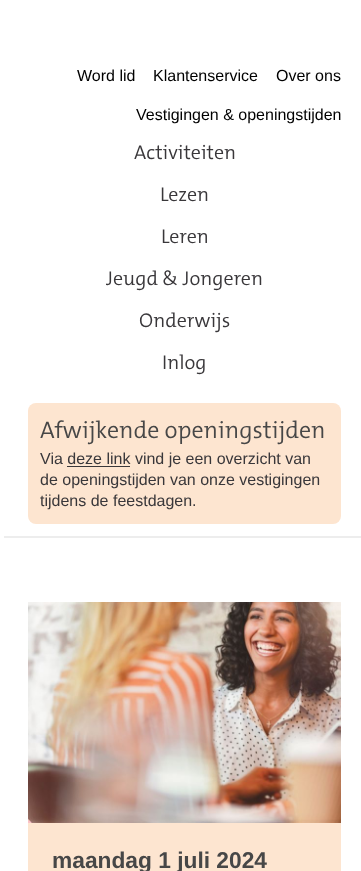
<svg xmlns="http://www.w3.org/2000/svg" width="361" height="871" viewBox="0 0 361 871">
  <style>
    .t1 { font: 16px Liberation Sans; fill: #000; }
    .t2 { font: 300 20px 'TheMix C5'; fill: #39373a; }
    .t3 { font: 300 24px 'TheMix C5'; fill: #474747; }
    .t4 { font: 16px Liberation Sans; fill: #39373a; }
    .t5 { font: bold 22.75px Liberation Sans; fill: #474747; }
  </style>
  <rect width="100%" height="100%" fill="#fff"/>
  <rect x="4" y="536" width="357" height="2" fill="#ededed"/>
  <text x="77" y="81" class="t1">Word lid</text>
  <text x="153" y="81" class="t1">Klantenservice</text>
  <text x="276" y="81" class="t1">Over ons</text>
  <text x="136" y="120" class="t1">Vestigingen &amp; openingstijden</text>
  <text x="134" y="159" class="t2">Activiteiten</text>
  <text x="160" y="201" class="t2">Lezen</text>
  <text x="161" y="243" class="t2">Leren</text>
  <text x="106" y="285" class="t2">Jeugd &amp; Jongeren</text>
  <text x="139" y="327" class="t2">Onderwijs</text>
  <text x="162" y="369" class="t2">Inlog</text>
  <rect x="28" y="403" width="313" height="121" rx="8" fill="#fde5d0"/>
  <text x="40" y="438" class="t3">Afwijkende openingstijden</text>
  <text x="40" y="464" class="t4">Via deze link vind je een overzicht van</text>
  <rect x="67" y="466" width="63" height="1" fill="#39373a"/>
  <text x="40" y="485" class="t4">de openingstijden van onze vestigingen</text>
  <text x="40" y="506" class="t4">tijdens de feestdagen.</text>
  <rect x="28" y="823" width="313" height="48" fill="#fde5d0"/>
  <image x="28" y="602" width="313" height="221" href="images/1.png"/>
  <text x="52" y="868" class="t5">maandag 1 juli 2024</text>
</svg>
